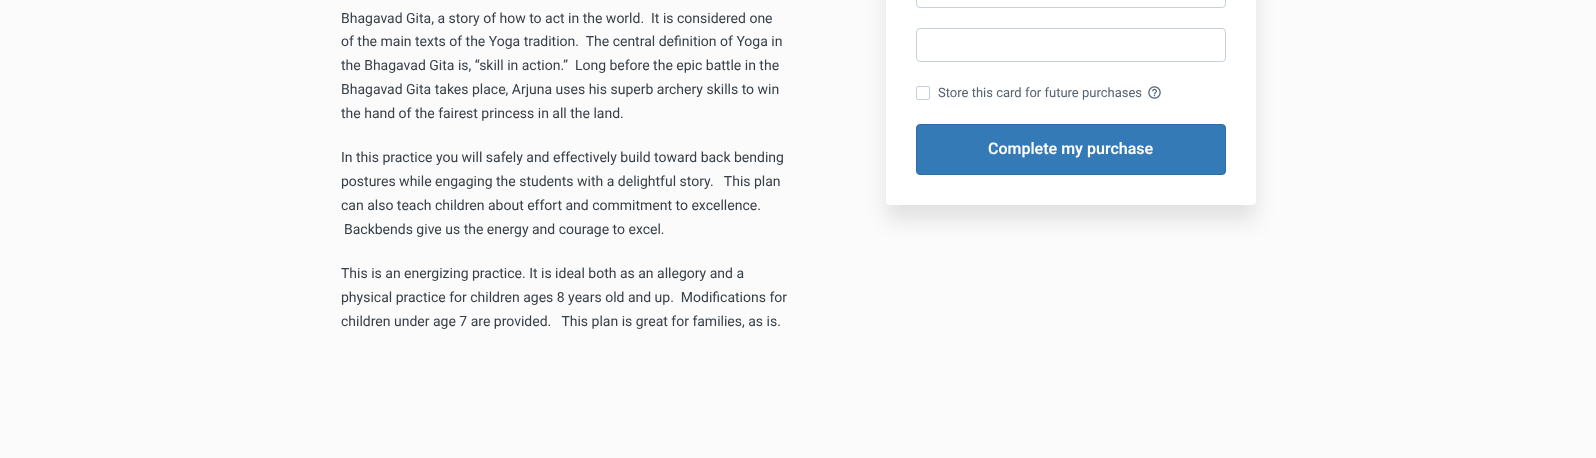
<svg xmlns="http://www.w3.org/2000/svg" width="1596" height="458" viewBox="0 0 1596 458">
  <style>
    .t1 { font: 14px Roboto; fill: #373f47; }
    .t2 { font: 13px Roboto; fill: #556370; }
    .t3 { font: 600 16px Roboto; fill: #fff; }
  </style>
  <rect width="100%" height="100%" fill="#fbfbfb"/>
  <text x="341" y="23" class="t1" xml:space="preserve">Bhagavad Gita, a story of how to act in the world.  It is considered one</text>
  <text x="341" y="46" class="t1" xml:space="preserve">of the main texts of the Yoga tradition.  The central definition of Yoga in</text>
  <text x="341" y="70" class="t1" xml:space="preserve">the Bhagavad Gita is, “skill in action.”  Long before the epic battle in the</text>
  <text x="341" y="94" class="t1">Bhagavad Gita takes place, Arjuna uses his superb archery skills to win</text>
  <text x="341" y="118" class="t1">the hand of the fairest princess in all the land.</text>
  <text x="341" y="162" class="t1">In this practice you will safely and effectively build toward back bending</text>
  <text x="341" y="186" class="t1" xml:space="preserve">postures while engaging the students with a delightful story.   This plan</text>
  <text x="341" y="210" class="t1">can also teach children about effort and commitment to excellence.</text>
  <text x="344" y="234" class="t1">Backbends give us the energy and courage to excel.</text>
  <text x="341" y="278" class="t1">This is an energizing practice. It is ideal both as an allegory and a</text>
  <text x="341" y="302" class="t1" xml:space="preserve">physical practice for children ages 8 years old and up.  Modifications for</text>
  <text x="341" y="326" class="t1" xml:space="preserve">children under age 7 are provided.   This plan is great for families, as is.</text>
  <rect x="886" y="-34" width="370" height="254" rx="4" fill="#0000001a" filter="blur(10px)"/>
  <rect x="886" y="-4" width="370" height="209" rx="4" fill="#fff"/>
  <rect x="916.5" y="-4.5" width="309" height="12" rx="3.5" fill="none" stroke="#c7cfd8"/>
  <rect x="916.5" y="28.5" width="309" height="33" rx="3.5" fill="none" stroke="#c7cfd8"/>
  <rect x="916.5" y="86.5" width="13" height="13" rx="1.5" fill="none" stroke="#c7cfd8"/>
  <text x="938" y="97" class="t2">Store this card for future purchases</text>
  <image x="1148" y="86" width="13" height="13" href="images/1.png"/>
  <rect x="916.5" y="124.5" width="309" height="50" rx="3.5" fill="#337ab7" stroke="#2e6da4"/>
  <text x="988" y="154" class="t3">Complete my purchase</text>
</svg>
